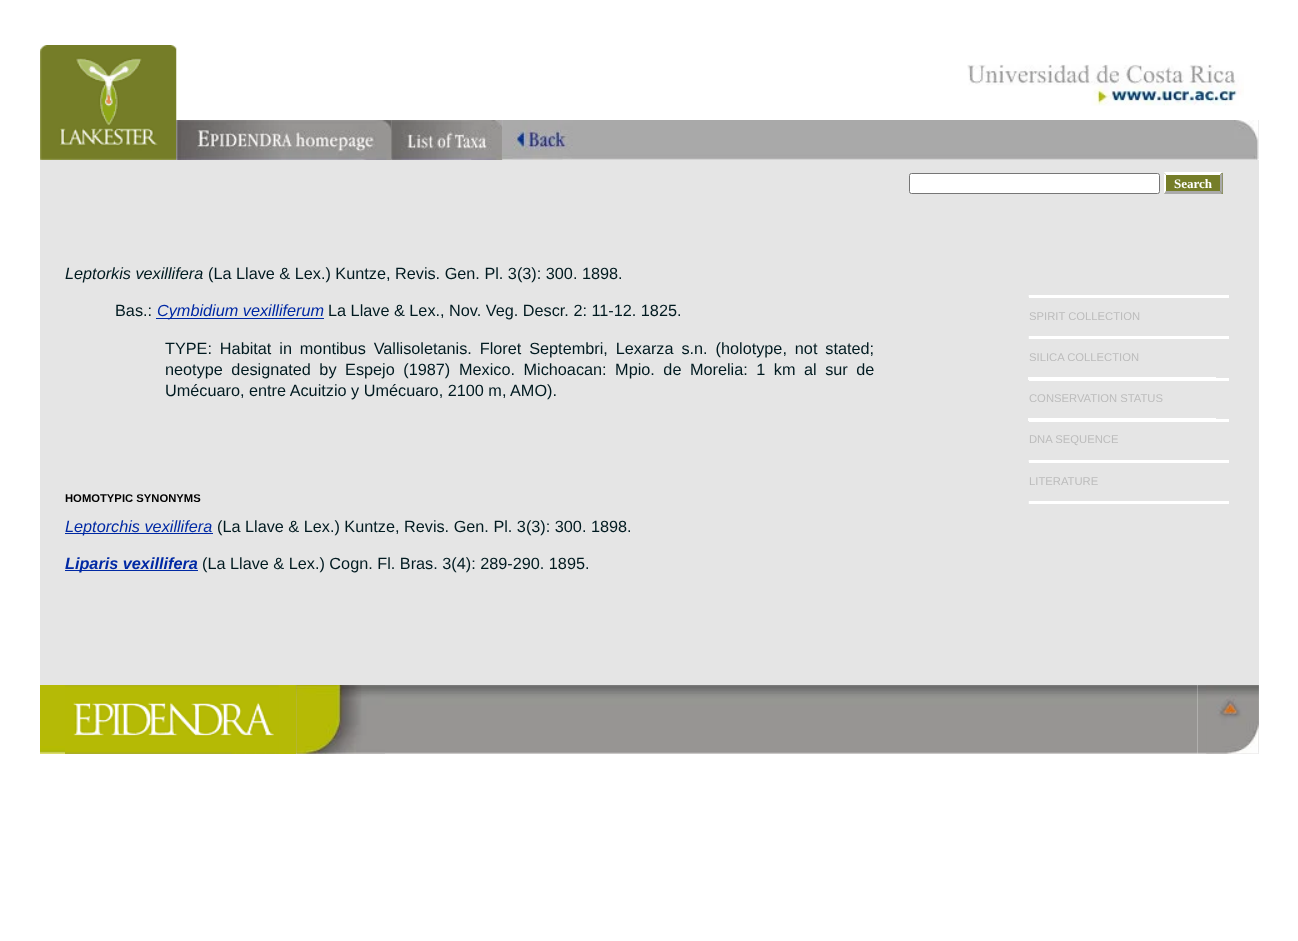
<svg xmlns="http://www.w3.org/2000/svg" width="1298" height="941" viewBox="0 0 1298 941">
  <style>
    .t1 { font: bold 13px Liberation Serif; fill: #fff; }
    .t2 { font: italic 16.25px Liberation Sans; fill: #001a20; }
    .t3 { font: 16.25px Liberation Sans; fill: #001a20; }
    .t4 { font: italic 16.25px Liberation Sans; fill: #0029a4; }
    .t5 { font: bold 11.25px Liberation Sans; fill: #000; }
    .t6 { font: italic bold 16.25px Liberation Sans; fill: #0029a4; }
    .t7 { font: 11.25px Liberation Sans; fill: #bcbcbc; }
  </style>
  <rect width="100%" height="100%" fill="#fff"/>
  <image x="176" y="120" width="216" height="40" href="images/2.png"/>
  <image x="40" y="45" width="137" height="115" href="images/1.png"/>
  <image x="391" y="120" width="112" height="40" href="images/4.png"/>
  <image x="176" y="120" width="216" height="40" href="images/3.png"/>
  <image x="502" y="120" width="113" height="40" href="images/6.png"/>
  <image x="391" y="120" width="112" height="40" href="images/5.png"/>
  <image x="502" y="120" width="71" height="40" href="images/7.png"/>
  <image x="967" y="64" width="277" height="42" href="images/8.png"/>
  <image x="615" y="120" width="644" height="40" href="images/9.png"/>
  <image x="1234" y="120" width="25" height="40" href="images/10.png"/>
  <rect x="40" y="160" width="1219" height="525" fill="#e5e5e5"/>
  <rect x="909.5" y="173.5" width="250" height="20" rx="2" fill="#fff" stroke="#767676"/>
  <rect x="1164" y="173" width="59" height="21" fill="#757d28"/>
  <path d="M1164 172H1222L1220 175H1166Z" fill="#fff"/>
  <path d="M1222.5 172.5V194L1220 191V175Z" fill="#aaa"/>
  <path d="M1222 194H1164L1166 191H1220Z" fill="#aaa"/>
  <path d="M1164 194V172.5L1166 175V191Z" fill="#fff"/>
  <text x="1174" y="188" class="t1">Search</text>
  <text x="65" y="279" class="t2">Leptorkis vexillifera</text>
  <text x="208" y="279" class="t3">(La Llave &amp; Lex.) Kuntze, Revis. Gen. Pl. 3(3): 300. 1898.</text>
  <text x="115" y="316" class="t3">Bas.:</text>
  <rect x="156" y="318" width="168" height="1" fill="#0029a4"/>
  <text x="157" y="316" class="t4">Cymbidium vexilliferum</text>
  <text x="328" y="316" class="t3">La Llave &amp; Lex., Nov. Veg. Descr. 2: 11-12. 1825.</text>
  <text x="165" y="354" word-spacing="3.4" class="t3">TYPE: Habitat in montibus Vallisoletanis. Floret Septembri, Lexarza s.n. (holotype, not stated;</text>
  <text x="165" y="375" word-spacing="4" class="t3">neotype designated by Espejo (1987)</text>
  <text x="459" y="375" word-spacing="4" class="t3">Mexico. Michoacan: Mpio. de Morelia: 1 km al sur de</text>
  <text x="165" y="396" class="t3">Umécuaro, entre Acuitzio y Umécuaro, 2100 m, AMO).</text>
  <text x="65" y="502" class="t5">HOMOTYPIC SYNONYMS</text>
  <rect x="65" y="533" width="148" height="1" fill="#0029a4"/>
  <text x="65" y="532" class="t4">Leptorchis vexillifera</text>
  <text x="217" y="532" class="t3">(La Llave &amp; Lex.) Kuntze, Revis. Gen. Pl. 3(3): 300. 1898.</text>
  <rect x="65" y="570" width="133" height="1" fill="#0029a4"/>
  <text x="65" y="569" class="t6">Liparis vexillifera</text>
  <text x="202" y="569" class="t3">(La Llave &amp; Lex.) Cogn. Fl. Bras. 3(4): 289-290. 1895.</text>
  <rect x="1029" y="295" width="200" height="3" fill="#fff"/>
  <rect x="1028" y="295" width="1" height="2" fill="#ececec"/>
  <text x="1029" y="320" class="t7">SPIRIT COLLECTION</text>
  <rect x="1029" y="336" width="200" height="3" fill="#fff"/>
  <image x="1028" y="336" width="1" height="3" href="images/11.png"/>
  <text x="1029" y="361" class="t7">SILICA COLLECTION</text>
  <rect x="1029" y="378" width="200" height="3" fill="#fff"/>
  <rect x="1028" y="377" width="188" height="3" fill="#fff"/>
  <text x="1029" y="402" class="t7">CONSERVATION STATUS</text>
  <rect x="1029" y="419" width="200" height="3" fill="#fff"/>
  <rect x="1028" y="418" width="188" height="3" fill="#fff"/>
  <text x="1029" y="443" class="t7">DNA SEQUENCE</text>
  <rect x="1029" y="460" width="200" height="3" fill="#fff"/>
  <rect x="1028" y="460" width="1" height="2" fill="#ececec"/>
  <text x="1029" y="485" class="t7">LITERATURE</text>
  <rect x="1029" y="501" width="200" height="3" fill="#fff"/>
  <image x="1028" y="501" width="1" height="3" href="images/11.png"/>
  <rect x="40" y="685" width="256" height="69" fill="#b5ba06"/>
  <image x="40" y="746" width="25" height="8" href="images/12.png"/>
  <image x="65" y="685" width="214" height="69" href="images/13.png"/>
  <image x="296" y="685" width="902" height="69" href="images/14.png"/>
  <image x="296" y="685" width="89" height="69" href="images/15.png"/>
  <image x="1197" y="685" width="62" height="69" href="images/16.png"/>
  <image x="1206" y="685" width="53" height="69" href="images/17.png"/>
</svg>
